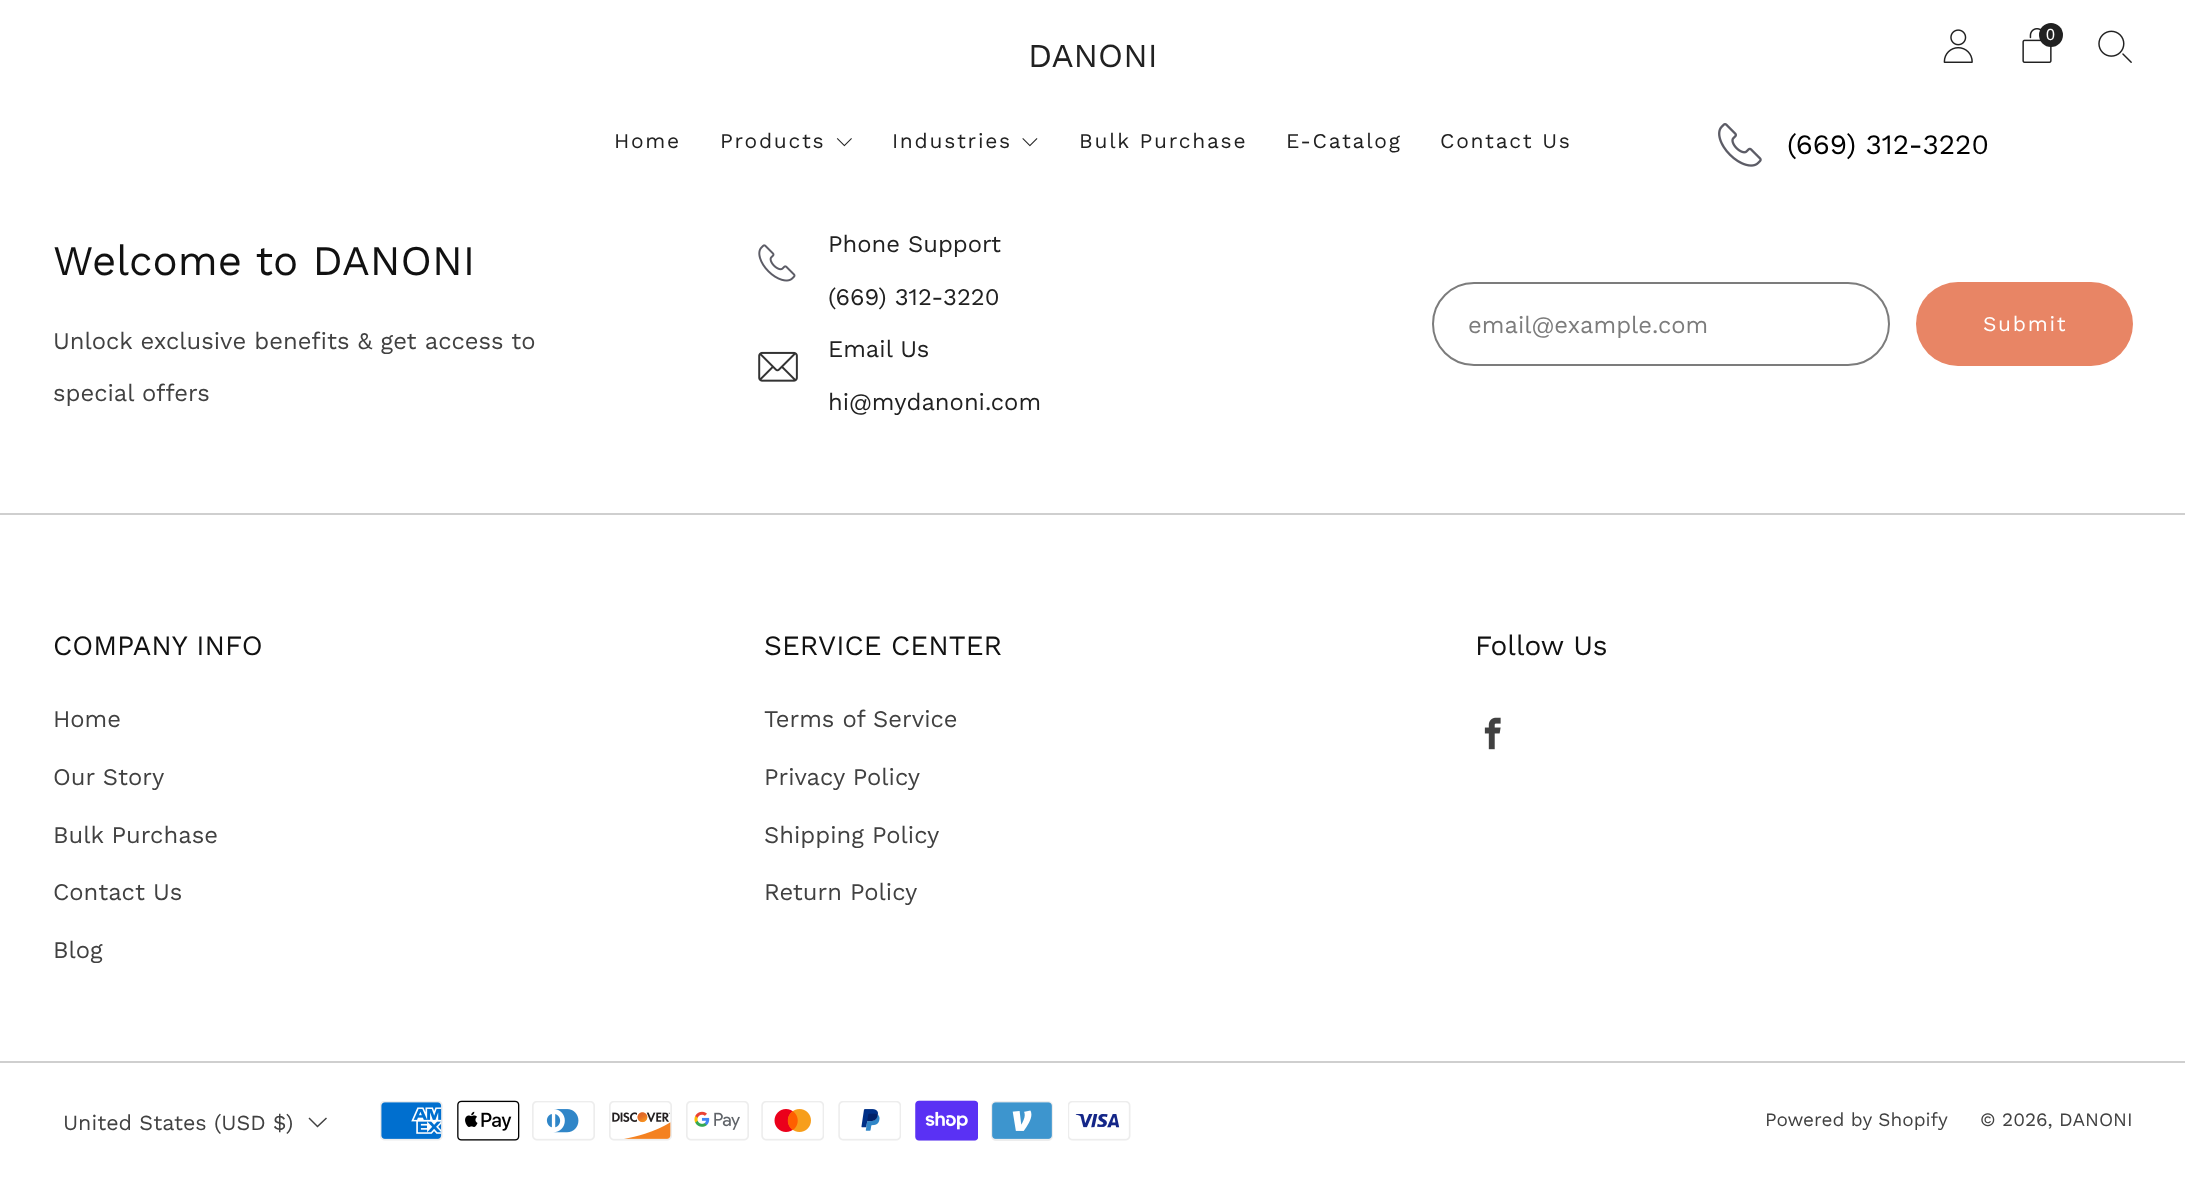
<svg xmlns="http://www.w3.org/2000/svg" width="2185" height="1177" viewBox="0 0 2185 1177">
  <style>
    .t1 { font: 16px Liberation Sans; fill: #fff; }
    .t2 { font: 21px Work Sans; letter-spacing: 1.75px; fill: #212121; }
    .t3 { font: 28px Work Sans; fill: #000; }
    .t4 { font: 33.5px Work Sans; fill: #212121; }
    .t5 { font: 42px Work Sans; fill: #111; }
    .t6 { font: 23.8px Work Sans; fill: #414141; }
    .t7 { font: 23.8px Work Sans; fill: #212121; }
    .t8 { font: 23.8px Work Sans; fill: #7c7c7c; }
    .t9 { font: 21px Work Sans; letter-spacing: 1.75px; fill: #fff; }
    .t10 { font: 28px Work Sans; fill: #111; }
    .t11 { font: 21.5px Work Sans; fill: #414141; }
    .t12 { font: 19px Work Sans; fill: #414141; }
  </style>
  <rect width="100%" height="100%" fill="#fff"/>
  <image x="1943" y="29" width="30" height="34" href="images/1.png"/>
  <image x="2022" y="28" width="30" height="35" href="images/2.png"/>
  <circle cx="2051" cy="35" r="12" fill="#212121"/>
  <text x="2046" y="40" class="t1">0</text>
  <image x="2098" y="30" width="34" height="33" href="images/3.png"/>
  <text x="614" y="148" class="t2">Home</text>
  <text x="720" y="148" class="t2">Products</text>
  <image x="836" y="138" width="16" height="9" href="images/4.png"/>
  <text x="892" y="148" class="t2">Industries</text>
  <image x="1022" y="138" width="16" height="9" href="images/5.png"/>
  <text x="1079" y="148" class="t2">Bulk Purchase</text>
  <text x="1286" y="148" class="t2">E-Catalog</text>
  <text x="1440" y="148" class="t2">Contact Us</text>
  <image x="1718" y="123" width="44" height="44" href="images/6.png"/>
  <text x="1787" y="154" class="t3">(669) 312-3220</text>
  <text x="1028" y="67" class="t4">DANONI</text>
  <text x="53" y="275" class="t5">Welcome to DANONI</text>
  <text x="53" y="349" class="t6">Unlock exclusive benefits &amp; get access to</text>
  <text x="53" y="401" class="t6">special offers</text>
  <image x="758" y="244" width="38" height="38" href="images/7.png"/>
  <text x="828" y="252" class="t7">Phone Support</text>
  <text x="828" y="305" class="t7">(669) 312-3220</text>
  <image x="758" y="351" width="40" height="31" href="images/8.png"/>
  <text x="828" y="357" class="t7">Email Us</text>
  <text x="828" y="410" class="t7">hi@mydanoni.com</text>
  <rect x="1433" y="283" width="456" height="82" rx="41" fill="none" stroke="#7c7c7c" stroke-width="2"/>
  <text x="1468" y="333" class="t8">email@example.com</text>
  <rect x="1916" y="282" width="217" height="84" rx="42" fill="#e88565"/>
  <text x="1983" y="331" class="t9">Submit</text>
  <rect x="0" y="513" width="2185" height="2" fill="#cfcfcf"/>
  <text x="53" y="655" class="t10">COMPANY INFO</text>
  <text x="53" y="727" class="t6">Home</text>
  <text x="53" y="785" class="t6">Our Story</text>
  <text x="53" y="843" class="t6">Bulk Purchase</text>
  <text x="53" y="900" class="t6">Contact Us</text>
  <text x="53" y="958" class="t6">Blog</text>
  <text x="764" y="655" class="t10">SERVICE CENTER</text>
  <text x="764" y="727" class="t6">Terms of Service</text>
  <text x="764" y="785" class="t6">Privacy Policy</text>
  <text x="764" y="843" class="t6">Shipping Policy</text>
  <text x="764" y="900" class="t6">Return Policy</text>
  <text x="1475" y="655" class="t10">Follow Us</text>
  <image x="1484" y="717" width="17" height="33" href="images/9.png"/>
  <rect x="0" y="1061" width="2185" height="2" fill="#cfcfcf"/>
  <text x="63" y="1130" class="t11">United States (USD $)</text>
  <path d="M309.5 1117.5L308.5 1118.5L317.5 1127.5L327 1118.5L326 1117.5L317.5 1125.5Z" fill="#414141"/>
  <image x="380" y="1101" width="63" height="40" href="images/10.png"/>
  <image x="457" y="1100" width="63" height="41" href="images/11.png"/>
  <image x="532" y="1101" width="63" height="40" href="images/12.png"/>
  <image x="609" y="1101" width="63" height="40" href="images/13.png"/>
  <image x="686" y="1101" width="63" height="40" href="images/14.png"/>
  <image x="761" y="1101" width="63" height="40" href="images/15.png"/>
  <image x="838" y="1101" width="63" height="40" href="images/16.png"/>
  <image x="915" y="1100" width="63" height="41" href="images/17.png"/>
  <image x="991" y="1101" width="62" height="40" href="images/18.png"/>
  <image x="1068" y="1101" width="63" height="40" href="images/19.png"/>
  <text x="1765" y="1126" class="t12">Powered by Shopify</text>
  <text x="1980" y="1126" class="t12">© 2026, DANONI</text>
</svg>
